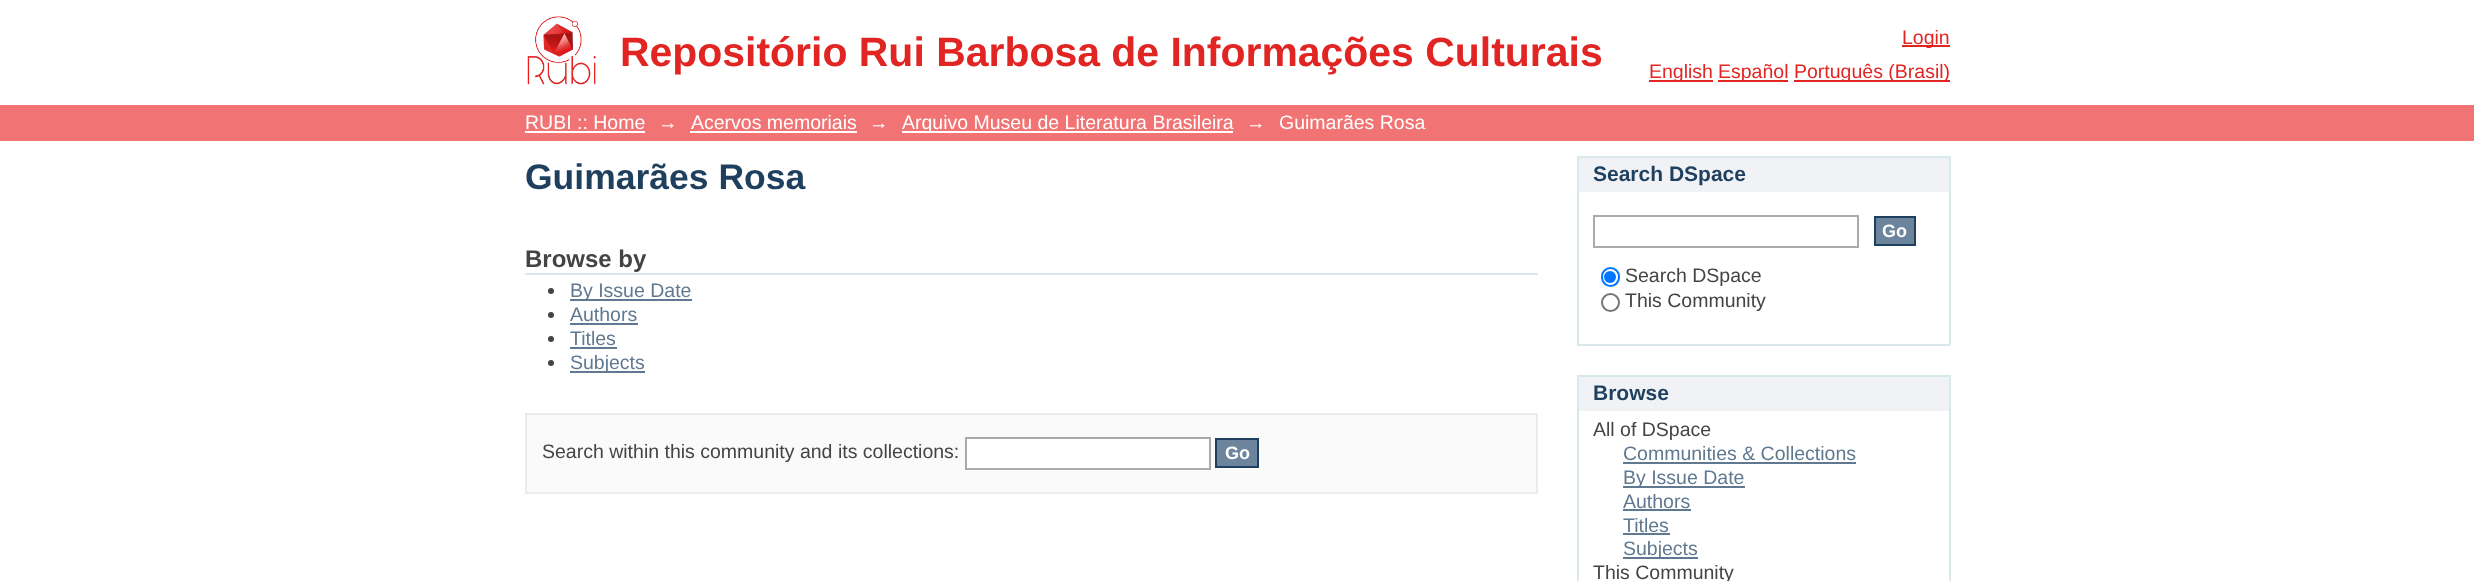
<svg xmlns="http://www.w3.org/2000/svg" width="2474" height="581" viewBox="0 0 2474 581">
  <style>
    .t1 { font: bold 40.95px Liberation Sans; fill: #e12523; }
    .t2 { font: 19.5px Liberation Sans; fill: #e12523; }
    .t3 { font: 19.5px Liberation Sans; fill: #fff; }
    .t4 { font: bold 35.5px Liberation Sans; fill: #1f3f5e; }
    .t5 { font: bold 24px Liberation Sans; fill: #444; }
    .t6 { font: 19.5px Liberation Sans; fill: #607890; }
    .t7 { font: 19.5px Liberation Sans; fill: #444; }
    .t8 { font: bold 18px Liberation Sans; fill: #fff; }
    .t9 { font: bold 21px Liberation Sans; fill: #1f3f5e; }
  </style>
  <rect width="100%" height="100%" fill="#fff"/>
  <image x="527" y="16" width="69" height="69" href="images/1.png"/>
  <text x="620" y="66" class="t1">Repositório Rui Barbosa de Informações Culturais</text>
  <rect x="1902" y="45" width="48" height="2" fill="#e12523"/>
  <text x="1902" y="44" class="t2">Login</text>
  <rect x="1649" y="80" width="64" height="2" fill="#e12523"/>
  <text x="1649" y="78" class="t2">English</text>
  <rect x="1718" y="80" width="70" height="2" fill="#e12523"/>
  <text x="1718" y="78" class="t2">Español</text>
  <rect x="1794" y="80" width="156" height="2" fill="#e12523"/>
  <text x="1794" y="78" class="t2">Português (Brasil)</text>
  <rect x="0" y="105" width="2474" height="36" fill="#f17374"/>
  <text x="525" y="129" class="t3">RUBI :: Home</text>
  <rect x="525" y="131" width="120" height="2" fill="#fff"/>
  <text x="658" y="129" class="t3">→</text>
  <text x="691" y="129" class="t3">Acervos memoriais</text>
  <rect x="690" y="131" width="167" height="2" fill="#fff"/>
  <text x="869" y="129" class="t3">→</text>
  <rect x="902" y="131" width="331" height="2" fill="#fff"/>
  <text x="902" y="129" class="t3">Arquivo Museu de Literatura Brasileira</text>
  <text x="1246" y="129" class="t3">→</text>
  <text x="1279" y="129" class="t3">Guimarães Rosa</text>
  <text x="525" y="189" class="t4">Guimarães Rosa</text>
  <rect x="525" y="273" width="1013" height="2" fill="#d8e8eb"/>
  <text x="525" y="267" class="t5">Browse by</text>
  <circle cx="551" cy="291" r="3" fill="#444"/>
  <rect x="570" y="299" width="122" height="2" fill="#607890"/>
  <text x="570" y="297" class="t6">By Issue Date</text>
  <circle cx="551" cy="315" r="3" fill="#444"/>
  <text x="570" y="321" class="t6">Authors</text>
  <rect x="570" y="323" width="68" height="2" fill="#607890"/>
  <circle cx="551" cy="339" r="3" fill="#444"/>
  <text x="570" y="345" class="t6">Titles</text>
  <rect x="570" y="347" width="47" height="2" fill="#607890"/>
  <circle cx="551" cy="363" r="3" fill="#444"/>
  <rect x="570" y="371" width="75" height="2" fill="#607890"/>
  <text x="570" y="369" class="t6">Subjects</text>
  <rect x="526" y="414" width="1011" height="79" fill="#fafafa" stroke="#ebebeb" stroke-width="2"/>
  <text x="542" y="458" class="t7">Search within this community and its collections:</text>
  <rect x="966" y="438" width="244" height="31" fill="#fff" stroke="#aaa" stroke-width="2"/>
  <rect x="1216" y="439" width="42" height="28" fill="#6d859c" stroke="#1f3f5e" stroke-width="2"/>
  <text x="1225" y="459" class="t8">Go</text>
  <rect x="1579" y="158" width="370" height="34" fill="#f0f2f5"/>
  <rect x="1577" y="156" width="373" height="2" fill="#d8e8eb"/>
  <rect x="1949" y="156" width="2" height="189" fill="#d8e8eb"/>
  <rect x="1577" y="156" width="2" height="36" fill="#d8e8eb"/>
  <text x="1593" y="181" class="t9">Search DSpace</text>
  <rect x="1577" y="344" width="373" height="2" fill="#d8e8eb"/>
  <rect x="1577" y="192" width="2" height="153" fill="#d8e8eb"/>
  <rect x="1594" y="216" width="264" height="31" fill="none" stroke="#aaa" stroke-width="2"/>
  <rect x="1875" y="217" width="40" height="28" fill="#6d859c" stroke="#1f3f5e" stroke-width="2"/>
  <text x="1882" y="237" class="t8">Go</text>
  <rect x="1602" y="268" width="17" height="18" rx="8.5" fill="none" stroke="#0075ff" stroke-width="2"/>
  <circle cx="1610" cy="277" r="6" fill="#0075ff"/>
  <text x="1625" y="282" class="t7">Search DSpace</text>
  <circle cx="1610.5" cy="302.5" r="8.5" fill="none" stroke="#767676" stroke-width="2"/>
  <text x="1625" y="307" class="t7">This Community</text>
  <rect x="1579" y="377" width="370" height="34" fill="#f0f2f5"/>
  <rect x="1577" y="375" width="373" height="2" fill="#d8e8eb"/>
  <rect x="1949" y="375" width="2" height="206" fill="#d8e8eb"/>
  <rect x="1577" y="375" width="2" height="206" fill="#d8e8eb"/>
  <text x="1593" y="400" class="t9">Browse</text>
  <text x="1593" y="436" class="t7">All of DSpace</text>
  <text x="1623" y="460" class="t6">Communities &amp; Collections</text>
  <rect x="1623" y="462" width="233" height="2" fill="#607890"/>
  <rect x="1623" y="486" width="122" height="2" fill="#607890"/>
  <text x="1623" y="484" class="t6">By Issue Date</text>
  <text x="1623" y="508" class="t6">Authors</text>
  <rect x="1623" y="509" width="68" height="2" fill="#607890"/>
  <text x="1623" y="532" class="t6">Titles</text>
  <rect x="1623" y="533" width="47" height="2" fill="#607890"/>
  <rect x="1623" y="557" width="75" height="2" fill="#607890"/>
  <text x="1623" y="555" class="t6">Subjects</text>
  <text x="1593" y="579" class="t7">This Community</text>
</svg>
